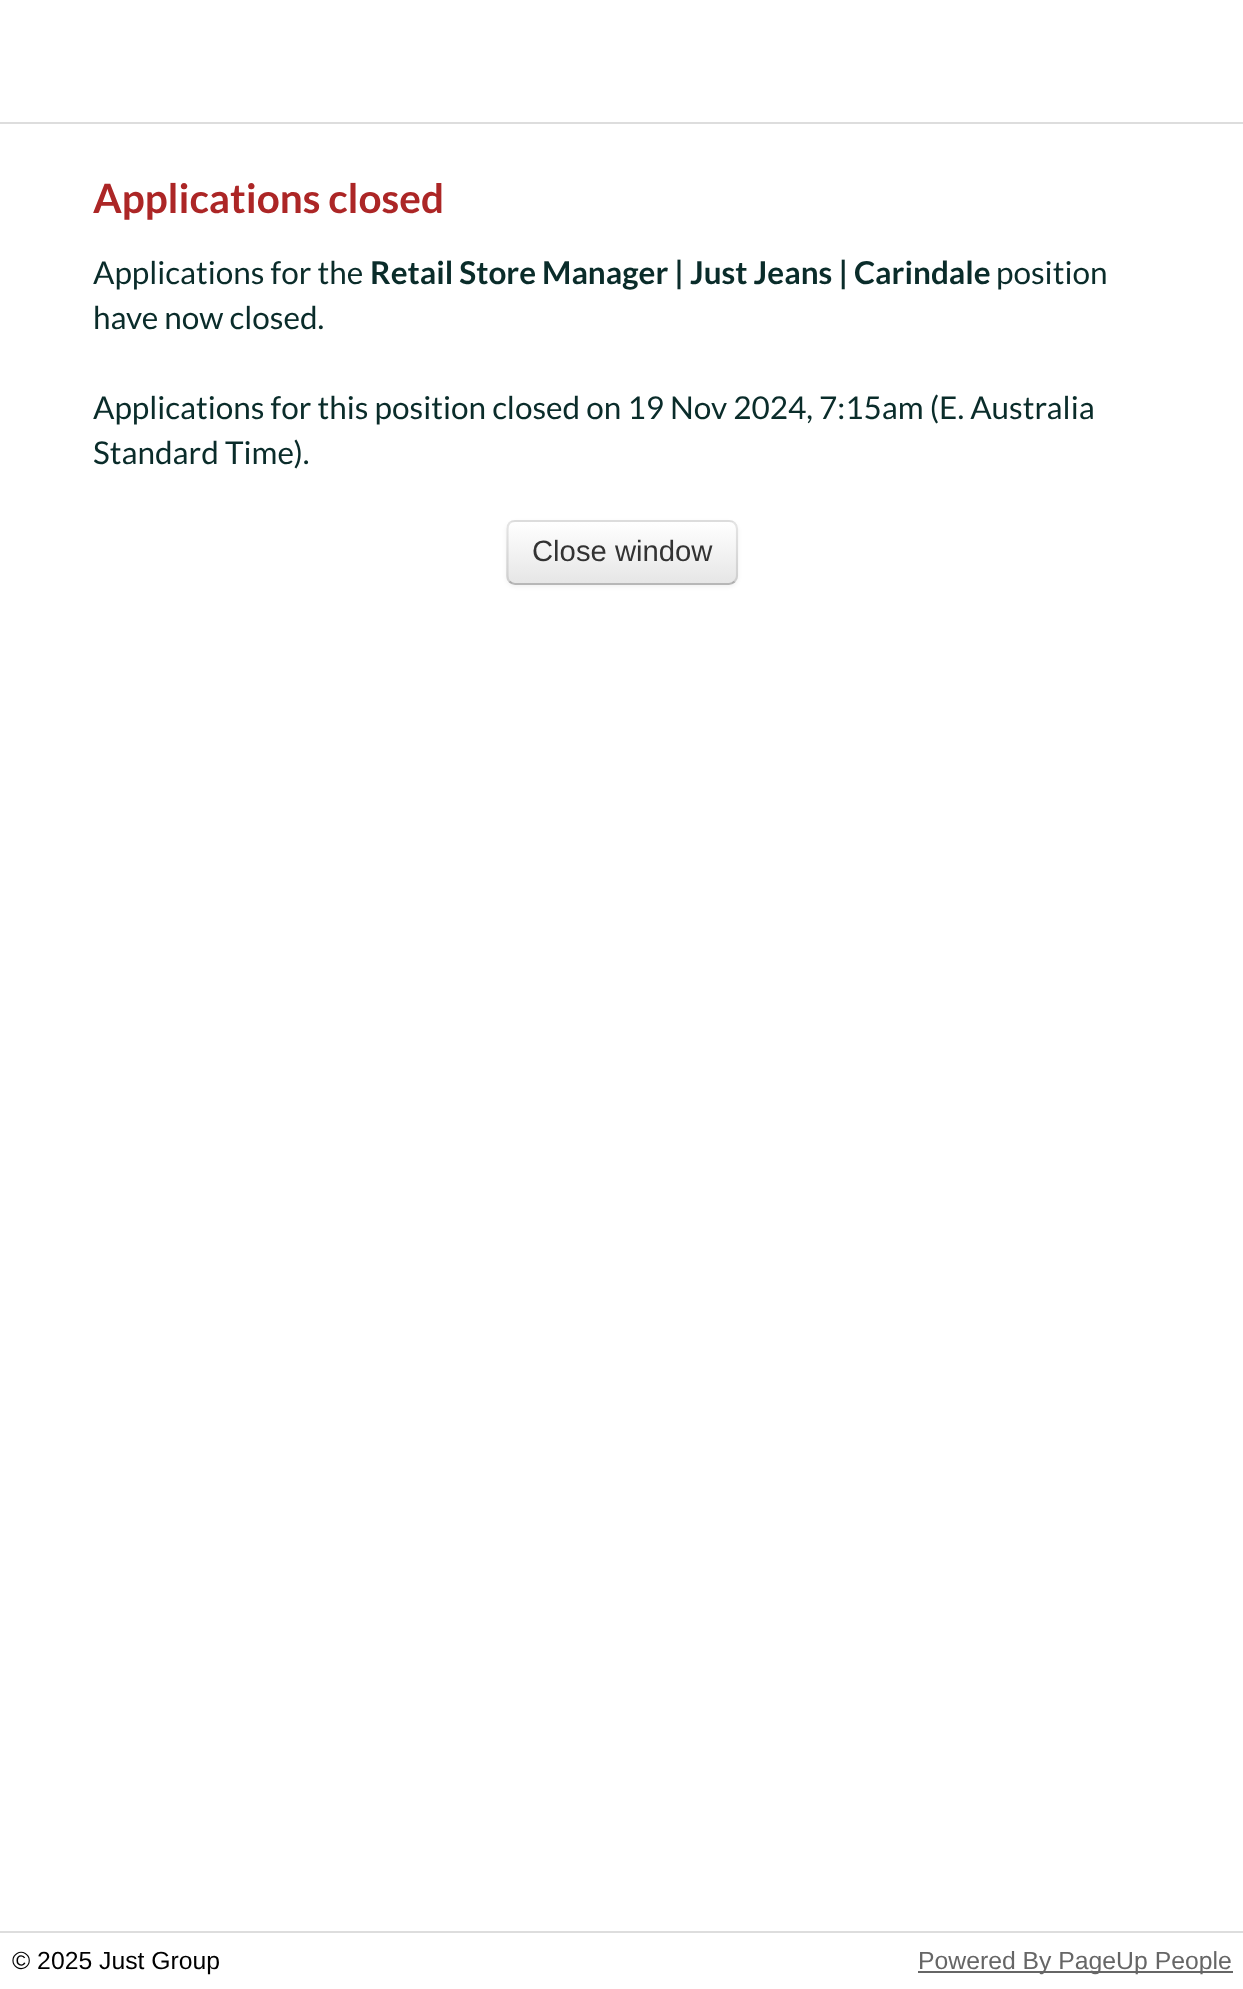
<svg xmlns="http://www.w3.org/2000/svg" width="1243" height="1989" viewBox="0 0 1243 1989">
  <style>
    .t1 { font: bold 40.5px Lato; fill: #ac2626; }
    .t2 { font: 31.5px Lato; fill: #0a2c2a; }
    .t3 { font: bold 31.5px Lato; fill: #0a2c2a; }
    .t4 { font: 29.25px Liberation Sans; fill: #333; }
    .t5 { font: 24.75px Liberation Sans; fill: #000; }
    .t6 { font: 24.75px Liberation Sans; fill: #666; }
  </style>
  <defs>
    <clipPath id="clip1"><rect x="506" y="520" width="232" height="65" rx="9"/></clipPath>
    <linearGradient id="g1" gradientUnits="userSpaceOnUse" x1="622" y1="522" x2="622" y2="583"><stop offset="0" stop-color="#fff"/><stop offset="1" stop-color="#e6e6e6"/></linearGradient>
  </defs>
  <rect width="100%" height="100%" fill="#fff"/>
  <rect x="0" y="122" width="1243" height="2" fill="#ddd"/>
  <text x="93" y="213" class="t1">Applications closed</text>
  <text x="93" y="284" class="t2">Applications for the</text>
  <text x="370" y="284" class="t3">Retail Store Manager | Just Jeans | Carindale</text>
  <text x="996" y="284" class="t2">position</text>
  <text x="93" y="329" class="t2">have now closed.</text>
  <text x="93" y="419" class="t2">Applications for this position closed on 19 Nov 2024, 7:15am (E. Australia</text>
  <text x="93" y="464" class="t2">Standard Time).</text>
  <rect x="506" y="522" width="232" height="65" rx="9" fill="#0000000d" filter="blur(2px)"/>
  <rect x="506" y="520" width="232" height="65" rx="9" fill="#f5f5f5"/>
  <g clip-path="url(#clip1)">
    <rect x="506" y="522" width="232" height="61" fill="url(#g1)"/>
  </g>
  <path d="M734.5 581.5C733 583 731 584 729 584H515C513 584 511 583 509.5 581.5" fill="none" stroke="#00000040" stroke-width="2.2"/>
  <path d="M509.5 581.5C508 580 507.5 578 507.5 576V529C507.5 526.5 508 524.5 509.5 523C511 521.5 513 521 515 521H729C731 521 733 521.5 734.5 523C736 524.5 737 526.5 737 529V576C737 578 736 580 734.5 581.5" fill="none" stroke="#0000001a" stroke-width="2.2"/>
  <text x="532" y="561" class="t4">Close window</text>
  <rect x="0" y="1931" width="1243" height="2" fill="#ddd"/>
  <text x="12" y="1969" class="t5">© 2025 Just Group</text>
  <rect x="918" y="1971" width="315" height="2" fill="#666"/>
  <text x="918" y="1969" class="t6">Powered By PageUp People</text>
</svg>
